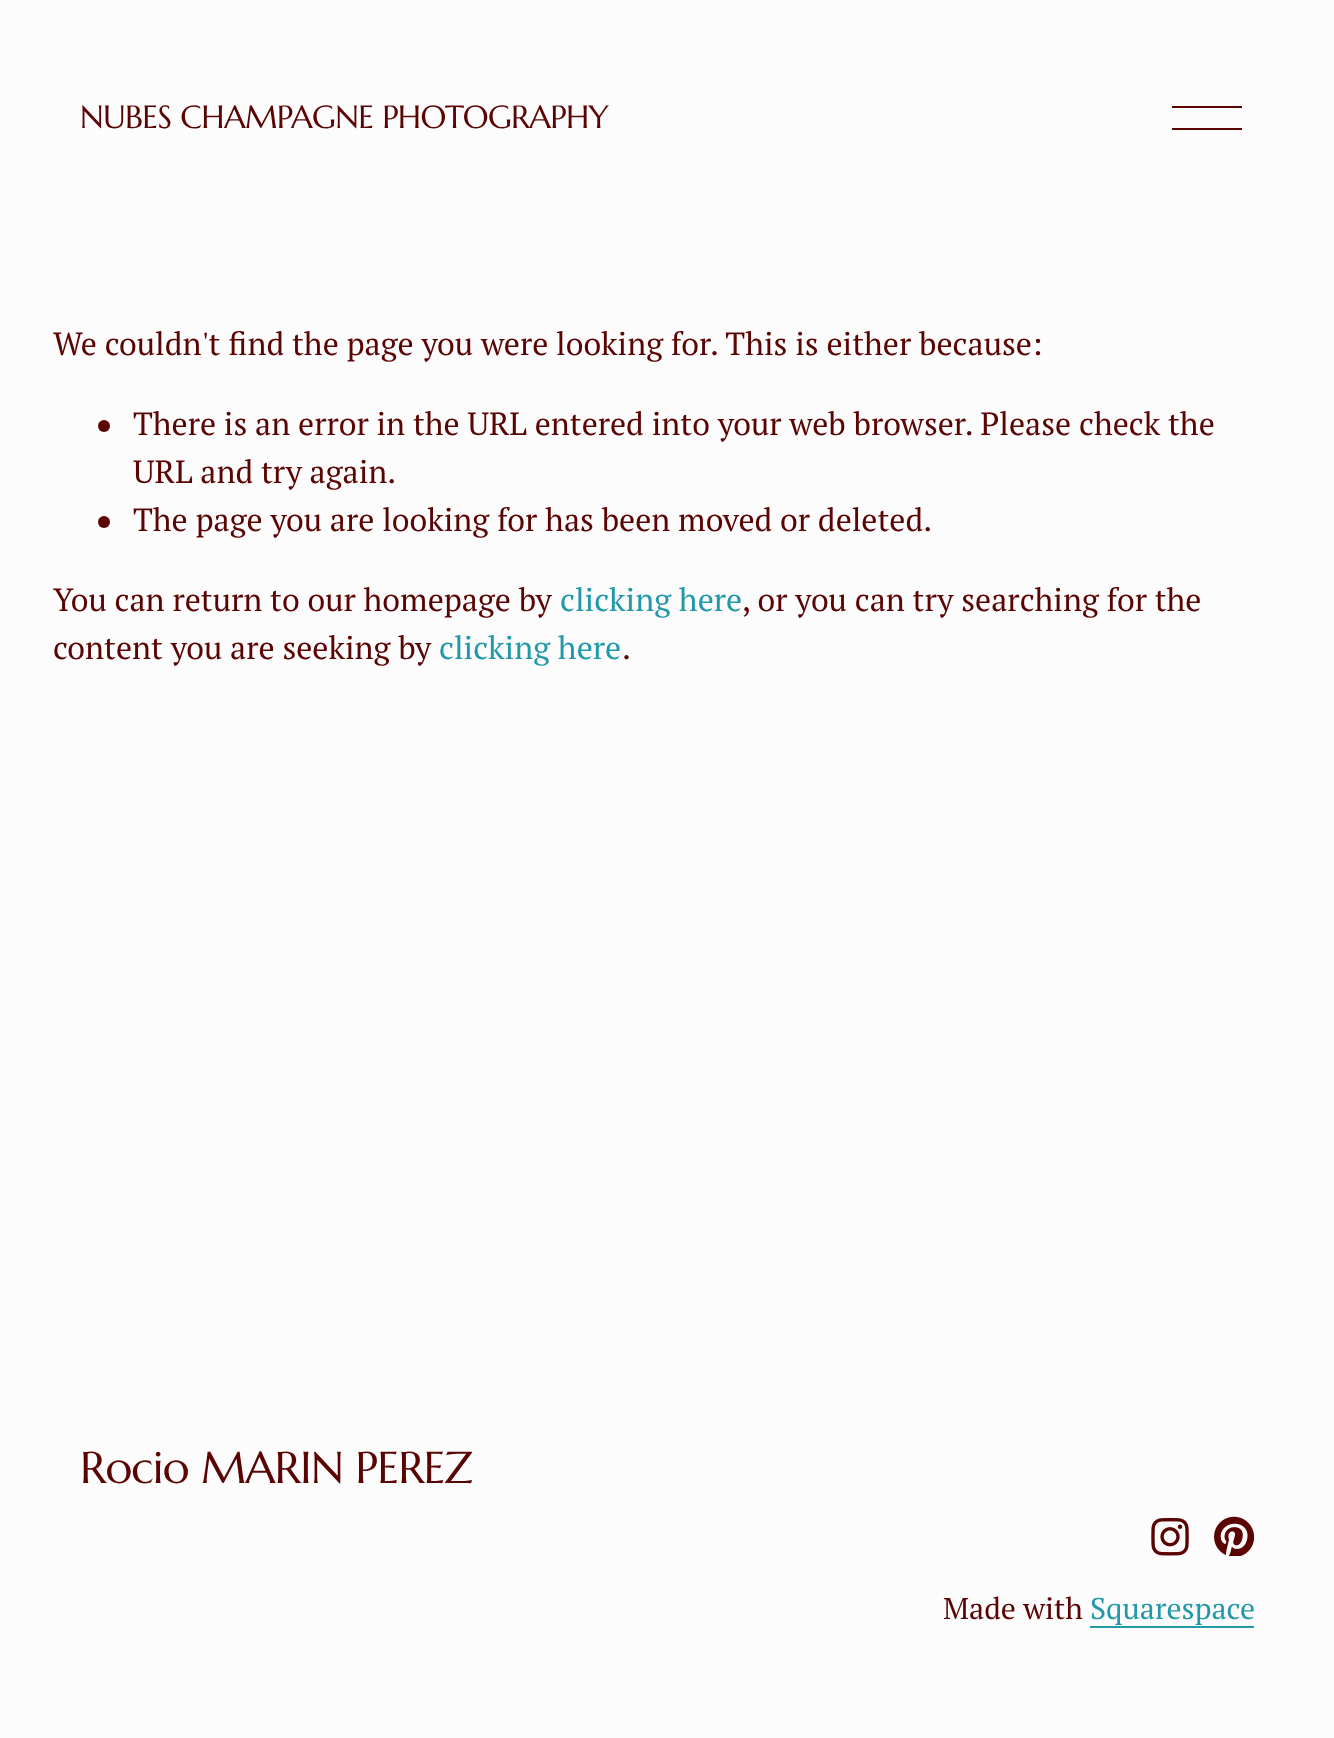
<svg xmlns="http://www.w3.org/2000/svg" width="1334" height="1738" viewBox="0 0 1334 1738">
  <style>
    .t1 { font: 32px Marcellus; letter-spacing: -0.65px; fill: #5a0404; }
    .t2 { font: 32px PT Serif; fill: #5a0404; }
    .t3 { font: 32px PT Serif; fill: #2299a9; }
    .t4 { font: 44.5px Marcellus; letter-spacing: -0.9px; fill: #5a0404; }
    .t5 { font: 30px PT Serif; fill: #5a0404; }
    .t6 { font: 30px PT Serif; fill: #2299a9; }
  </style>
  <rect width="100%" height="100%" fill="#fdfcfc"/>
  <text x="80" y="128" class="t1">NUBES CHAMPAGNE PHOTOGRAPHY</text>
  <rect x="1172" y="106" width="70" height="2" fill="#5a0404"/>
  <rect x="1172" y="128" width="70" height="2" fill="#5a0404"/>
  <text x="53" y="355" class="t2">We couldn't find the page you were looking for. This is either because:</text>
  <circle cx="104" cy="426" r="6" fill="#5a0404"/>
  <text x="133" y="435" class="t2">There is an error in the URL entered into your web browser. Please check the</text>
  <text x="133" y="483" class="t2">URL and try again.</text>
  <circle cx="104" cy="522" r="6" fill="#5a0404"/>
  <text x="133" y="531" class="t2">The page you are looking for has been moved or deleted.</text>
  <text x="53" y="611" class="t2">You can return to our homepage by</text>
  <text x="560" y="611" class="t3">clicking here</text>
  <text x="742" y="611" class="t2">, or you can try searching for the</text>
  <text x="53" y="659" class="t2">content you are seeking by</text>
  <text x="439" y="659" class="t3">clicking here</text>
  <text x="622" y="659" class="t2">.</text>
  <text x="80" y="1483" class="t4">Rocio MARIN PEREZ</text>
  <image x="1151" y="1518" width="38" height="38" href="images/1.png"/>
  <image x="1214" y="1516" width="40" height="40" href="images/2.png"/>
  <text x="943" y="1619" class="t5">Made with</text>
  <text x="1090" y="1619" class="t6">Squarespace</text>
  <rect x="1090" y="1626" width="164" height="2" fill="#2299a9"/>
</svg>
